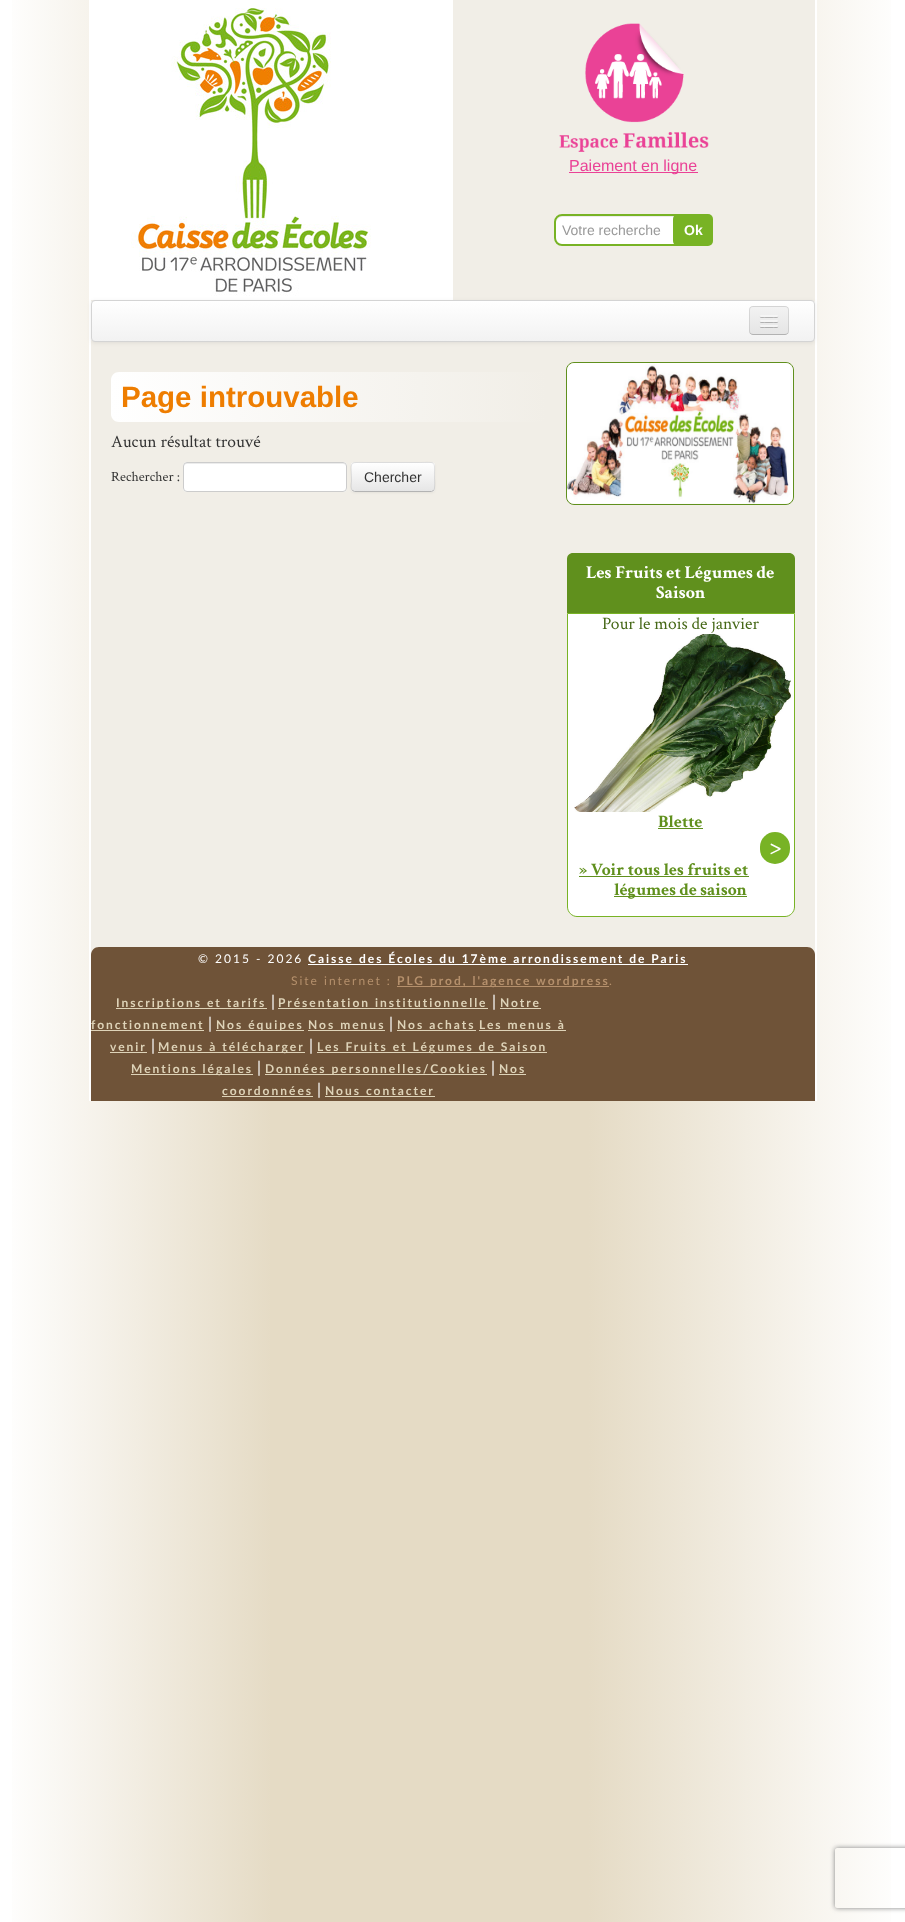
<svg xmlns="http://www.w3.org/2000/svg" width="905" height="1922" viewBox="0 0 905 1922">
  <style>
    .t1 { font: 16px Liberation Sans; fill: #ea4296; }
    .t2 { font: 14px Liberation Sans; fill: #999; }
    .t3 { font: bold 14px Liberation Sans; fill: #fff; }
    .t4 { font: bold 29.5px Liberation Sans; fill: #ee7d00; }
    .t5 { font: 17.5px Crimson Text; fill: #333; }
    .t6 { font: 14px Crimson Text; fill: #333; }
    .t7 { font: 14px Liberation Sans; fill: #333; }
    .t8 { font: bold 18px Crimson Text; fill: #fff; }
    .t9 { font: 17.5px Crimson Text; fill: #466817; }
    .t10 { font: bold 17.5px Crimson Text; fill: #60901d; }
    .t11 { font: 25px Crimson Text; fill: #fff; }
    .t12 { font: 12px Lato; letter-spacing: 2px; fill: #fff; }
    .t13 { font: bold 12px Lato; letter-spacing: 2px; fill: #fff; }
    .t14 { font: 12px Lato; letter-spacing: 2px; fill: #b5906c; }
    .t15 { font: bold 12px Lato; letter-spacing: 2px; fill: #b5906c; }
    .t16 { font: bold 12px Lato; letter-spacing: 2px; fill: #ded3b8; }
    .t17 { font: 16px Lato; fill: #fff; }
  </style>
  <defs>
    <linearGradient id="g1" gradientUnits="userSpaceOnUse" x1="0" y1="551" x2="905" y2="551"><stop offset="0" stop-color="#fff"/><stop offset="0.3" stop-color="#e5dbc5"/><stop offset="0.65" stop-color="#e5dbc5"/><stop offset="1" stop-color="#fff"/></linearGradient>
    <clipPath id="clip1"><rect x="91" y="300" width="724" height="42" rx="4"/></clipPath>
    <linearGradient id="g2" gradientUnits="userSpaceOnUse" x1="453" y1="301" x2="453" y2="341"><stop offset="0" stop-color="#fff"/><stop offset="1" stop-color="#f2f2f2"/></linearGradient>
    <clipPath id="clip2"><rect x="749" y="306" width="40" height="29" rx="4"/></clipPath>
    <linearGradient id="g3" gradientUnits="userSpaceOnUse" x1="769" y1="307" x2="769" y2="334"><stop offset="0" stop-color="#f2f2f2"/><stop offset="1" stop-color="#e5e5e5"/></linearGradient>
    <linearGradient id="g4" gradientUnits="userSpaceOnUse" x1="111" y1="397" x2="547" y2="397"><stop offset="0" stop-color="#fff"/><stop offset="1" stop-color="#f1eee7"/></linearGradient>
    <clipPath id="clip3"><rect x="351" y="462" width="84" height="30" rx="4"/></clipPath>
    <linearGradient id="g5" gradientUnits="userSpaceOnUse" x1="393" y1="463" x2="393" y2="491"><stop offset="0" stop-color="#fff"/><stop offset="1" stop-color="#e6e6e6"/></linearGradient>
    <clipPath id="clip4"><path d="M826 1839H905V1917H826ZM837 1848H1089C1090 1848 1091 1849 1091 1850V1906C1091 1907 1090 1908 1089 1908H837C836 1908 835 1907 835 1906V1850C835 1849 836 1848 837 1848Z" clip-rule="evenodd"/></clipPath>
  </defs>
  <rect width="100%" height="100%" fill="#fff"/>
  <rect x="12" y="0" width="879" height="1922" fill="url(#g1)"/>
  <rect x="91" y="300" width="724" height="655" fill="#f1eee7"/>
  <rect x="815" y="0" width="2" height="1101" fill="#fff"/>
  <rect x="89" y="0" width="2" height="1101" fill="#fff"/>
  <rect x="91" y="0" width="362" height="300" fill="#fff"/>
  <image x="131" y="8" width="240" height="288" href="images/1.png"/>
  <rect x="453" y="0" width="362" height="300" fill="#f1eee7"/>
  <image x="559" y="23" width="150" height="129" href="images/2.png"/>
  <rect x="569" y="172" width="129" height="1" fill="#ea4296"/>
  <text x="569" y="171" class="t1">Paiement en ligne</text>
  <rect x="554" y="214" width="136" height="32" rx="8" fill="#fff"/>
  <path d="M562 217H682C685 217 688 220 688 223C688 211 667 216 662 216H582C577 216 556 211 556 223C556 220 559 217 562 217Z" fill="#ececec"/>
  <rect x="555" y="215" width="134" height="30" rx="7" fill="none" stroke="#78b325" stroke-width="2"/>
  <text x="562" y="235" class="t2">Votre recherche</text>
  <rect x="673" y="214" width="40" height="32" rx="5" fill="#78b325"/>
  <text x="684" y="235" class="t3">Ok</text>
  <rect x="91" y="301" width="724" height="42" rx="4" fill="#00000012" filter="blur(2px)"/>
  <g clip-path="url(#clip1)">
    <rect x="91" y="301" width="724" height="40" fill="url(#g2)"/>
  </g>
  <rect x="91.5" y="300.5" width="723" height="41" rx="3.5" fill="none" stroke="#d4d4d4"/>
  <rect x="749" y="306" width="40" height="29" rx="4" fill="#ededed"/>
  <g clip-path="url(#clip2)">
    <rect x="749" y="307" width="40" height="27" fill="url(#g3)"/>
  </g>
  <path d="M787.5 333.5C787 334 786 334.5 785 334.5H753C752 334.5 751 334 750.5 333.5" fill="none" stroke="#b2b2b2"/>
  <path d="M750.5 333.5C750 333 749.5 332 749.5 331V310C749.5 309 750 308 750.5 307.5C751 307 752 306.5 753 306.5H785C786 306.5 787 307 787.5 307.5C788 308 788.5 309 788.5 310V331C788.5 332 788 333 787.5 333.5" fill="none" stroke="#0000001a"/>
  <path d="M760 316.5C759 318.5 763.5 318 763.5 318H774.5C774.5 318 779 318.5 778 316.5C777 317.5 770.5 317 769 317C767.5 317 761 317.5 760 316.5Z" fill="#b2b2b2"/>
  <rect x="760" y="315" width="18" height="2" rx="1" fill="#f5f5f5"/>
  <path d="M760 321.5C759 323.5 763.5 323 763.5 323H774.5C774.5 323 779 323.5 778 321.5C777 322.5 770.5 322 769 322C767.5 322 761 322.5 760 321.5Z" fill="#b0b0b0"/>
  <rect x="760" y="320" width="18" height="2" rx="1" fill="#f5f5f5"/>
  <path d="M760 326.5C759 328.5 763.5 328 763.5 328H774.5C774.5 328 779 328.5 778 326.5C777 327.5 770.5 327 769 327C767.5 327 761 327.5 760 326.5Z" fill="#aeaeae"/>
  <rect x="760" y="325" width="18" height="2" rx="1" fill="#f5f5f5"/>
  <path d="M119 372H547V422H119C114.5 422 111 418.5 111 414V380C111 375.5 114.5 372 119 372Z" fill="url(#g4)"/>
  <text x="121" y="407" class="t4">Page introuvable</text>
  <text x="111" y="447" class="t5">Aucun résultat trouvé</text>
  <text x="111" y="481" class="t6">Rechercher :</text>
  <rect x="183" y="462" width="164" height="30" rx="4" fill="#fff"/>
  <path d="M187 464H343C345 464 346 465 346 467C346 465 345 463 343 463H186C184 463 184 465 184 467C184 465 185 464 187 464Z" fill="#ececec"/>
  <rect x="183.5" y="462.5" width="163" height="29" rx="3.5" fill="none" stroke="#ccc"/>
  <rect x="351" y="463" width="84" height="30" rx="4" fill="#0000000d" filter="blur(1px)"/>
  <rect x="351" y="462" width="84" height="30" rx="4" fill="#f5f5f5"/>
  <g clip-path="url(#clip3)">
    <rect x="351" y="463" width="84" height="28" fill="url(#g5)"/>
  </g>
  <path d="M433.5 490.5L431.5 491.5H354.5L352.5 490.5" fill="none" stroke="#b3b3b3"/>
  <path d="M352.5 490.5C350 488 351.5 483.5 351.5 480.5C351.5 460.5 347.5 462.5 367.5 462.5H418.5C436.5 462.5 434.5 460 434.5 477C434.5 480 435.5 488.5 433.5 490.5" fill="none" stroke="#0000001a"/>
  <text x="364" y="482" class="t7">Chercher</text>
  <rect x="566.5" y="362.5" width="227" height="142" rx="7.5" fill="none" stroke="#60901d"/>
  <image x="567" y="363" width="226" height="141" href="images/3.png"/>
  <path d="M573 553H789C792.5 553 795 555.5 795 559V613H567V559C567 555.5 569.5 553 573 553Z" fill="#60901d"/>
  <text x="586" y="578" class="t8">Les Fruits et Légumes de</text>
  <text x="656" y="598" class="t8">Saison</text>
  <path d="M567.5 613.5H794.5V907C794.5 912 790 916.5 785 916.5H577C572 916.5 567.5 912 567.5 907Z" fill="#fff" stroke="#78b325"/>
  <text x="602" y="629" class="t9">Pour le mois de janvier</text>
  <image x="574" y="634" width="217" height="178" href="images/4.png"/>
  <text x="658" y="827" class="t10">Blette</text>
  <rect x="658" y="828" width="45" height="1" fill="#60901d"/>
  <rect x="760" y="832" width="30" height="32" rx="15" fill="#78b325"/>
  <text x="769" y="854" class="t11">&gt;</text>
  <text x="579" y="875" class="t10">» Voir tous les fruits et</text>
  <rect x="579" y="876" width="170" height="1" fill="#60901d"/>
  <rect x="614" y="896" width="133" height="1" fill="#60901d"/>
  <text x="614" y="895" class="t10">légumes de saison</text>
  <path d="M99 947H807C811.5 947 815 950.5 815 955V1101H91V955C91 950.5 94.5 947 99 947Z" fill="#6f5338"/>
  <text x="198" y="963" class="t12">© 2015 - 2026</text>
  <text x="308" y="963" class="t13">Caisse des Écoles du 17ème arrondissement de Paris</text>
  <rect x="308" y="964" width="380" height="1" fill="#fff"/>
  <text x="291" y="985" class="t14">Site internet :</text>
  <rect x="397" y="986" width="212" height="1" fill="#b5906c"/>
  <text x="397" y="985" class="t15">PLG prod, l'agence wordpress</text>
  <text x="609" y="985" class="t14">.</text>
  <rect x="116" y="1008" width="151" height="1" fill="#ded3b8"/>
  <text x="116" y="1007" class="t16">Inscriptions et tarifs</text>
  <text x="271" y="1007" class="t17">|</text>
  <text x="278" y="1007" class="t16">Présentation institutionnelle</text>
  <rect x="278" y="1008" width="210" height="1" fill="#ded3b8"/>
  <text x="492" y="1007" class="t17">|</text>
  <text x="500" y="1007" class="t16">Notre</text>
  <rect x="500" y="1008" width="41" height="1" fill="#ded3b8"/>
  <text x="91" y="1029" class="t16">fonctionnement</text>
  <rect x="91" y="1030" width="113" height="1" fill="#ded3b8"/>
  <text x="208" y="1029" class="t17">|</text>
  <rect x="216" y="1030" width="88" height="1" fill="#ded3b8"/>
  <text x="216" y="1029" class="t16">Nos équipes</text>
  <text x="308" y="1029" class="t16">Nos menus</text>
  <rect x="308" y="1030" width="77" height="1" fill="#ded3b8"/>
  <text x="389" y="1029" class="t17">|</text>
  <text x="397" y="1029" class="t16">Nos achats</text>
  <rect x="397" y="1030" width="79" height="1" fill="#ded3b8"/>
  <text x="479" y="1029" class="t16">Les menus à</text>
  <rect x="479" y="1030" width="87" height="1" fill="#ded3b8"/>
  <text x="110" y="1051" class="t16">venir</text>
  <rect x="110" y="1052" width="37" height="1" fill="#ded3b8"/>
  <text x="151" y="1051" class="t17">|</text>
  <rect x="158" y="1052" width="147" height="1" fill="#ded3b8"/>
  <text x="158" y="1051" class="t16">Menus à télécharger</text>
  <text x="309" y="1051" class="t17">|</text>
  <rect x="317" y="1052" width="230" height="1" fill="#ded3b8"/>
  <text x="317" y="1051" class="t16">Les Fruits et Légumes de Saison</text>
  <rect x="131" y="1074" width="122" height="1" fill="#ded3b8"/>
  <text x="131" y="1073" class="t16">Mentions légales</text>
  <text x="257" y="1073" class="t17">|</text>
  <rect x="265" y="1074" width="222" height="1" fill="#ded3b8"/>
  <text x="265" y="1073" class="t16">Données personnelles/Cookies</text>
  <text x="491" y="1073" class="t17">|</text>
  <text x="499" y="1073" class="t16">Nos</text>
  <rect x="499" y="1074" width="27" height="1" fill="#ded3b8"/>
  <text x="222" y="1095" class="t16">coordonnées</text>
  <rect x="222" y="1096" width="91" height="1" fill="#ded3b8"/>
  <text x="317" y="1095" class="t17">|</text>
  <text x="325" y="1095" class="t16">Nous contacter</text>
  <rect x="325" y="1096" width="110" height="1" fill="#ded3b8"/>
  <g clip-path="url(#clip4)">
    <rect x="835" y="1848" width="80" height="60" rx="2" fill="#808080" filter="blur(2.5px)"/>
  </g>
</svg>
